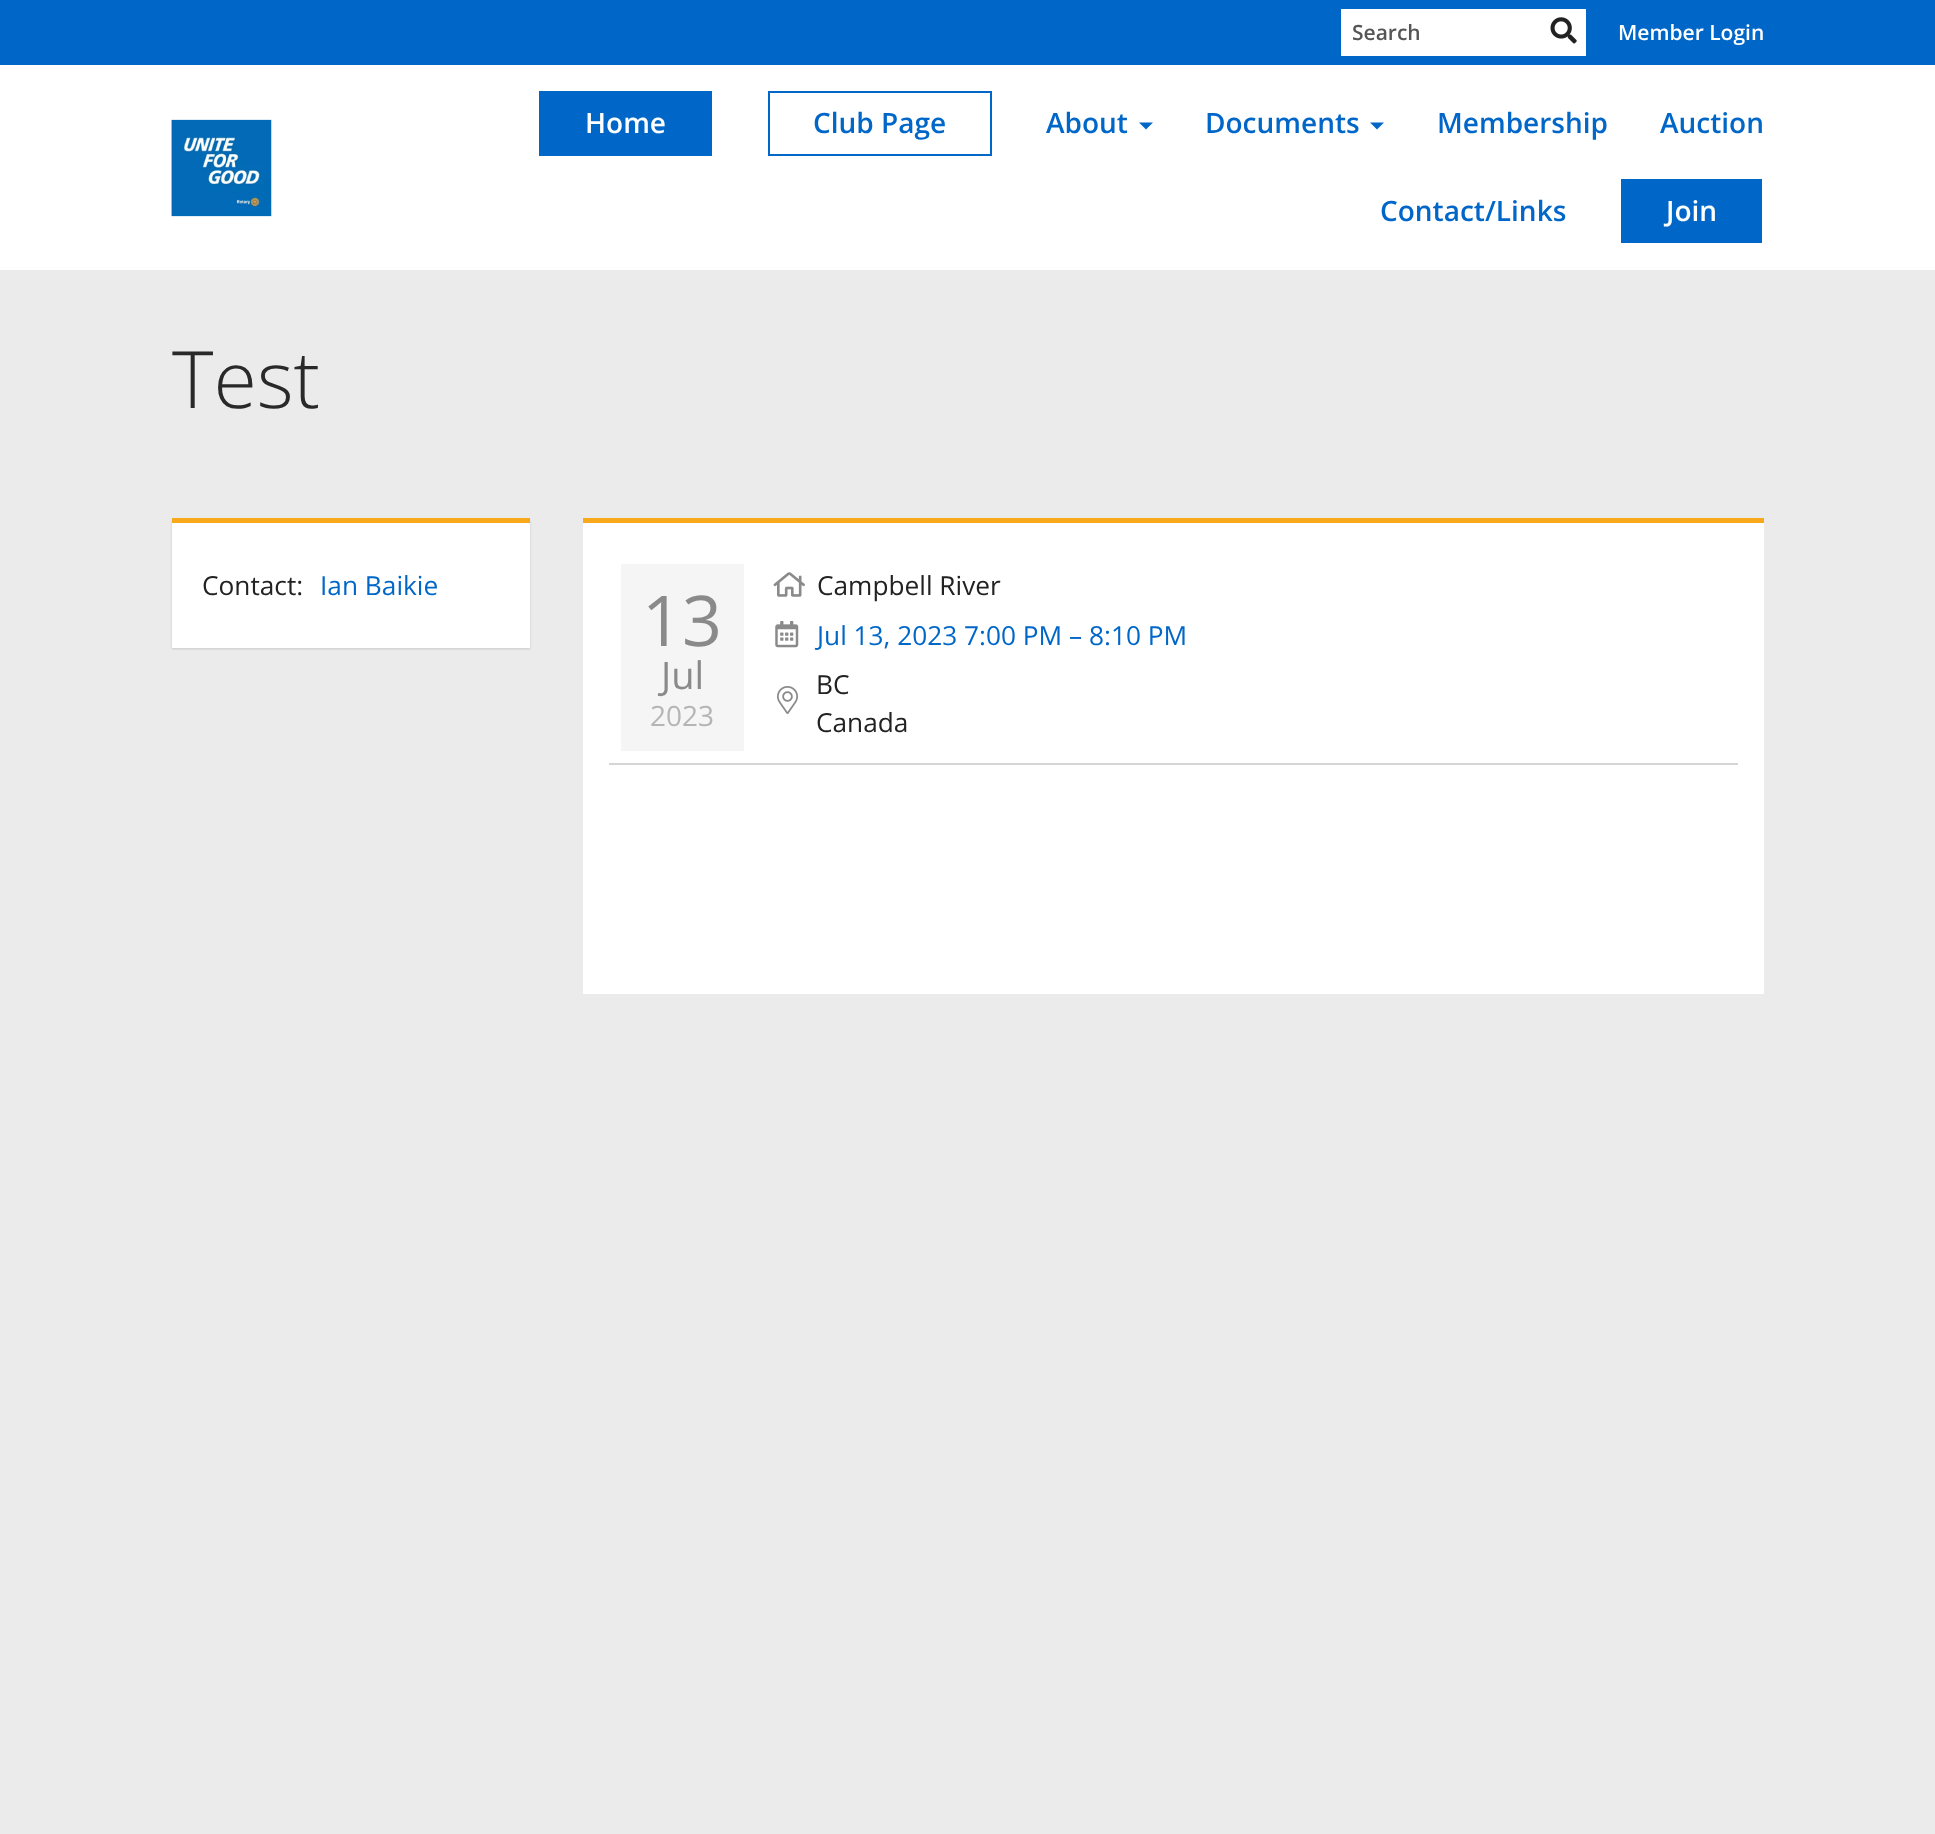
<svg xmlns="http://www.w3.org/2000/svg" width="1935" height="1834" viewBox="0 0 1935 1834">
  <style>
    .t1 { font: 600 21px Open Sans; fill: #555; }
    .t2 { font: 600 21px Open Sans; fill: #fff; }
    .t3 { font: 600 28px Open Sans; fill: #fff; }
    .t4 { font: 600 28px Open Sans; fill: #0067c8; }
    .t5 { font: 300 79px Open Sans; fill: #292929; }
    .t6 { font: 26.25px Open Sans; fill: #222; }
    .t7 { font: 26.25px Open Sans; fill: #0067c8; }
    .t8 { font: 70px Open Sans; fill: #8a8a8a; }
    .t9 { font: 38px Open Sans; fill: #8a8a8a; }
    .t10 { font: 28px Open Sans; fill: #b5b5b5; }
  </style>
  <rect width="100%" height="100%" fill="#ebebeb"/>
  <rect x="0" y="0" width="1935" height="65" fill="#0067c8"/>
  <rect x="1341" y="9" width="245" height="47" fill="#fff"/>
  <text x="1352" y="40" class="t1">Search</text>
  <image x="1550" y="17" width="27" height="27" href="images/1.png"/>
  <text x="1618" y="40" class="t2">Member Login</text>
  <rect x="0" y="65" width="1935" height="205" fill="#fff"/>
  <image x="171" y="119" width="101" height="98" href="images/2.png"/>
  <rect x="539" y="91" width="173" height="65" fill="#0067c8"/>
  <text x="585" y="133" class="t3">Home</text>
  <rect x="769" y="92" width="222" height="63" fill="none" stroke="#0067c8" stroke-width="2"/>
  <text x="813" y="133" class="t4">Club Page</text>
  <text x="1046" y="133" class="t4">About</text>
  <path d="M1139 122.5H1153L1146 129.5Z" fill="#0067c8"/>
  <text x="1205" y="133" class="t4">Documents</text>
  <path d="M1370 122.5H1384L1377 129.5Z" fill="#0067c8"/>
  <text x="1437" y="133" class="t4">Membership</text>
  <text x="1660" y="133" class="t4">Auction</text>
  <text x="1380" y="221" class="t4">Contact/Links</text>
  <rect x="1621" y="179" width="141" height="64" fill="#0067c8"/>
  <text x="1666" y="221" class="t3">Join</text>
  <text x="172" y="408" class="t5">Test</text>
  <rect x="172" y="520" width="358" height="129" fill="#00000026" filter="blur(1px)"/>
  <rect x="172" y="523" width="358" height="125" fill="#fff"/>
  <rect x="172" y="518" width="358" height="5" fill="#f7a81b"/>
  <text x="202" y="595" class="t6">Contact:</text>
  <text x="320" y="595" class="t7">Ian Baikie</text>
  <rect x="583" y="523" width="1181" height="471" fill="#fff"/>
  <rect x="583" y="518" width="1181" height="5" fill="#f7a81b"/>
  <rect x="609" y="763" width="1129" height="2" fill="#d5d5d5"/>
  <image x="773" y="572" width="32" height="25" href="images/3.png"/>
  <text x="817" y="595" class="t6">Campbell River</text>
  <rect x="621" y="564" width="123" height="187" fill="#f5f5f5"/>
  <text x="642" y="646" class="t8">13</text>
  <text x="661" y="689" class="t9">Jul</text>
  <text x="650" y="726" class="t10">2023</text>
  <image x="775" y="621" width="24" height="27" href="images/4.png"/>
  <text x="817" y="645" class="t7">Jul 13, 2023 7:00 PM – 8:10 PM</text>
  <image x="777" y="686" width="21" height="28" href="images/5.png"/>
  <text x="816" y="694" class="t6">BC</text>
  <text x="816" y="732" class="t6">Canada</text>
</svg>
